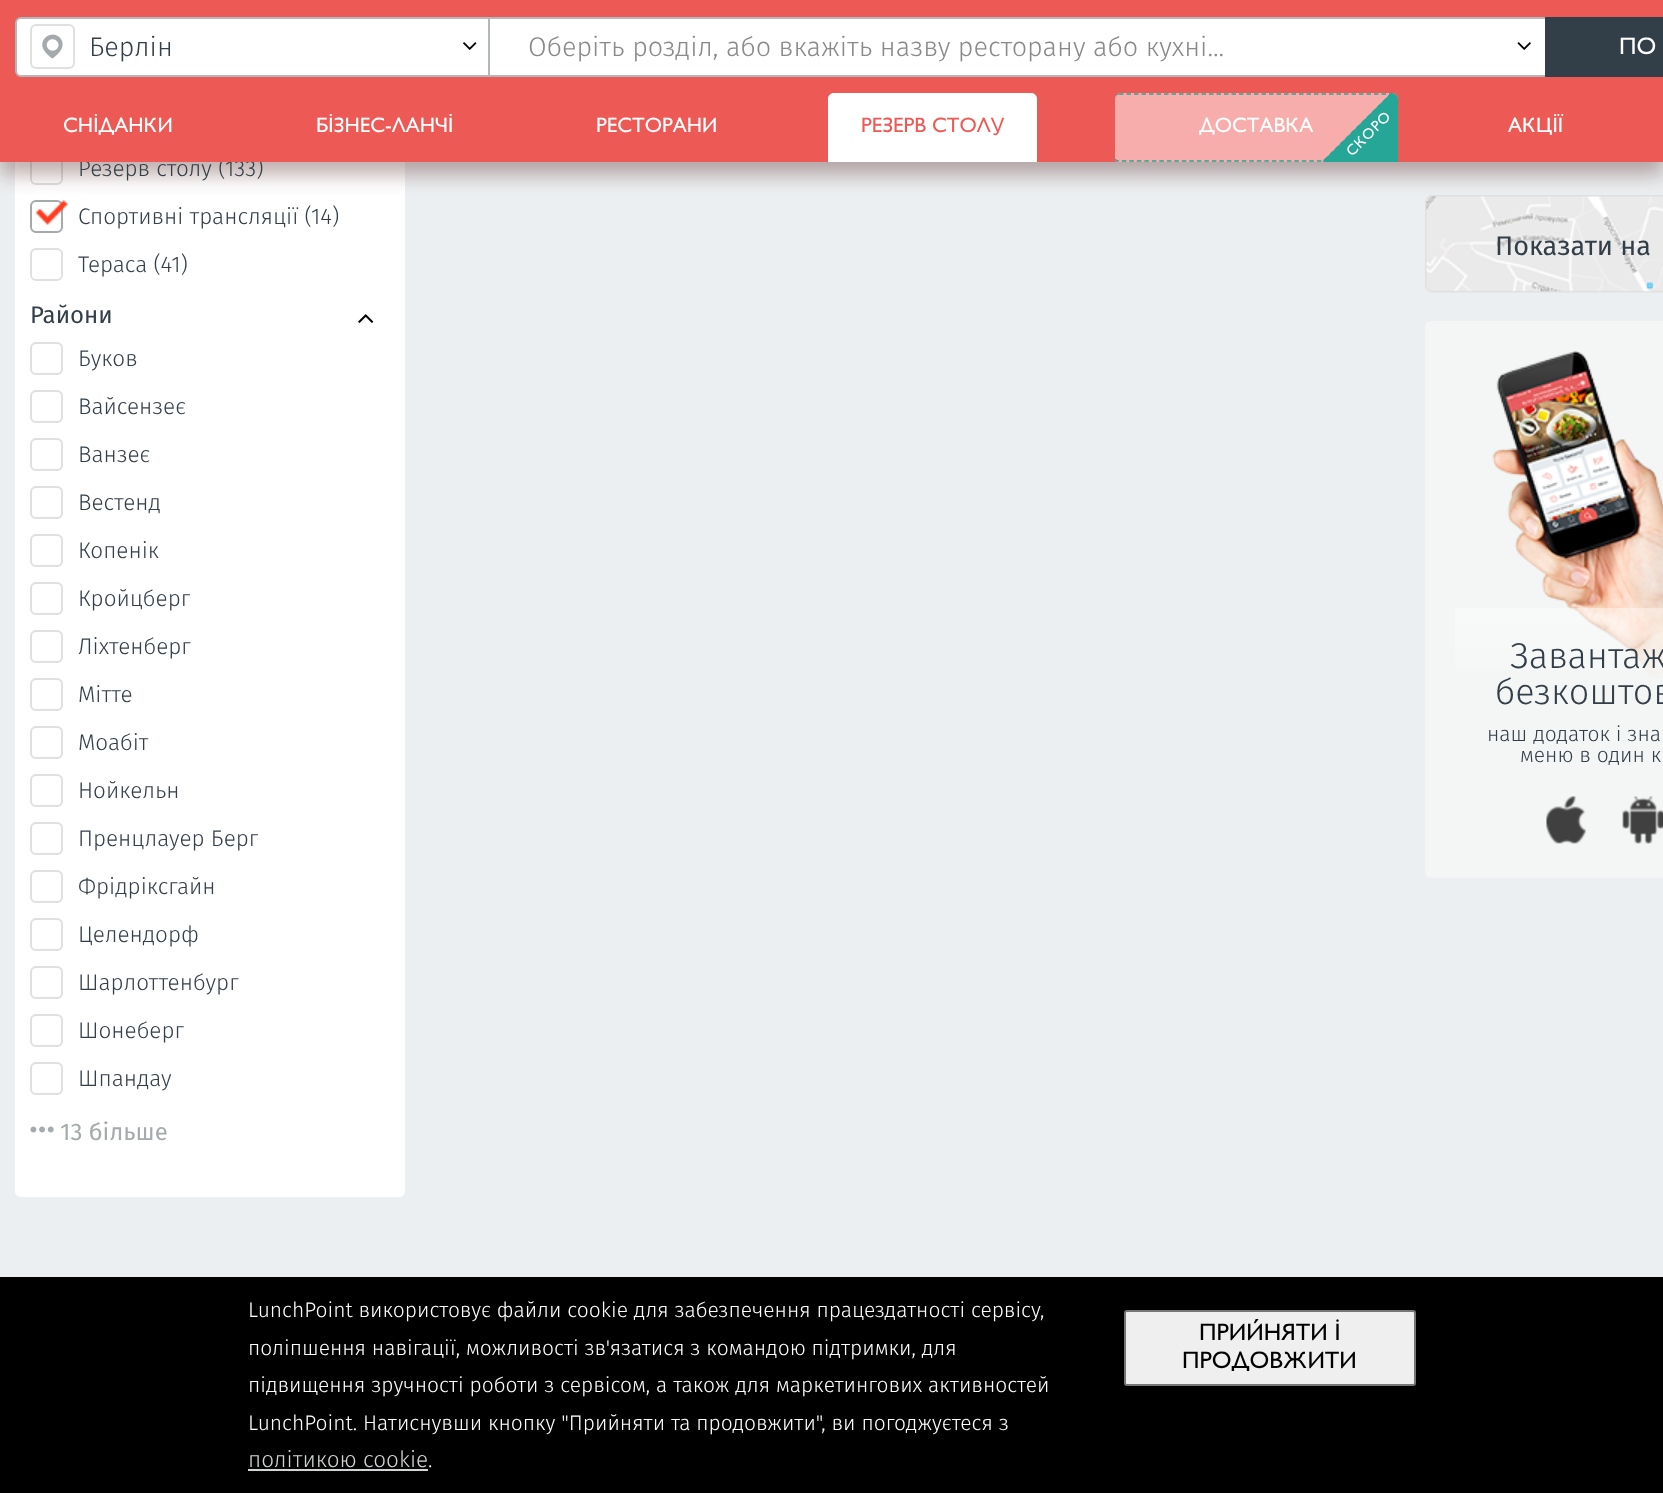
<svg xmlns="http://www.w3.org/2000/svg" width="1663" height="1493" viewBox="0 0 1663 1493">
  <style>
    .t1 { font: 300 22.5px Fira Sans; fill: #323e48; }
    .t2 { font: 300 27px Fira Sans; fill: #323e48; }
    .t3 { font: 300 27px Fira Sans; fill: #898989; }
    .t4 { font: 24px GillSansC; fill: #fff; }
    .t5 { font: 21px GillSansC; fill: #fff; }
    .t6 { font: 21px GillSansC; fill: #ed5a56; }
    .t7 { font: 15px GillSansC; letter-spacing: 0.75px; fill: #fff; }
    .t8 { font: 24px Fira Sans; fill: #323e48; }
    .t9 { font: 24px Fira Sans; fill: #a5aaad; }
    .t10 { font: 27px Fira Sans; fill: #323e48; }
    .t11 { font: 300 36px Fira Sans; fill: #323e48; }
    .t12 { font: 300 21px Fira Sans; fill: #323e48; }
    .t13 { font: 300 21px Fira Sans; fill: #fff; }
    .t14 { font: 300 22.5px Fira Sans; fill: #d2d5d6; }
    .t15 { font: 24px GillSansC; fill: #000; }
  </style>
  <defs>
    <clipPath id="clip1"><path d="M1121 93H1392C1395.5 93 1398 95.5 1398 99V162H1115V99C1115 95.5 1117.5 93 1121 93Z"/></clipPath>
    <linearGradient id="g1" gradientUnits="userSpaceOnUse" x1="1605" y1="608" x2="1605" y2="848"><stop offset="0" stop-color="#fff" stop-opacity="0.4"/><stop offset="0.4" stop-color="#fff" stop-opacity="0"/></linearGradient>
  </defs>
  <rect width="100%" height="100%" fill="#eceff1"/>
  <rect x="15" y="-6" width="390" height="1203" rx="6" fill="#fff"/>
  <rect x="31" y="153" width="31" height="31" rx="5" fill="none" stroke="#e0e0e0" stroke-width="2"/>
  <rect x="31" y="201" width="31" height="31" rx="5" fill="none" stroke="#a4a9ac" stroke-width="2"/>
  <image x="35" y="200" width="33" height="25" href="images/4.png"/>
  <image x="1425" y="195" width="238" height="98" href="images/7.png"/>
  <rect x="0" y="105" width="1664" height="69" fill="#3d181626" filter="blur(10px)"/>
  <rect x="0" y="105" width="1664" height="69" fill="#56201f40" filter="blur(10px)"/>
  <text x="78" y="176" class="t1">Резерв столу (</text>
  <text x="225" y="176" class="t1">133)</text>
  <rect x="0" y="0" width="1663" height="162" fill="#ed5a56"/>
  <rect x="16" y="18" width="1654" height="58" rx="5" fill="#fff" stroke="#b3b8bb" stroke-width="2"/>
  <rect x="31" y="25" width="43" height="43" rx="5" fill="none" stroke="#e0e0e0" stroke-width="2"/>
  <image x="42" y="34" width="21" height="25" href="images/1.png"/>
  <rect x="488" y="18" width="2" height="57" fill="#b3b8bb"/>
  <text x="89" y="56" class="t2">Берлін</text>
  <image x="463" y="42" width="14" height="8" href="images/2.png"/>
  <text x="528" y="56" class="t3">Оберіть розділ, або вкажіть назву ресторану або кухні...</text>
  <image x="1517" y="42" width="14" height="8" href="images/3.png"/>
  <rect x="1545" y="17" width="118" height="60" fill="#323e48"/>
  <text x="1619" y="54" class="t4">ПО</text>
  <text x="63" y="132" class="t5">СНІДАНКИ</text>
  <text x="316" y="132" class="t5">БІЗНЕС-ЛАНЧІ</text>
  <text x="596" y="132" class="t5">РЕСТОРАНИ</text>
  <path d="M834 93H1031C1034.5 93 1037 95.5 1037 99V162H828V99C828 95.5 830.5 93 834 93Z" fill="#fff"/>
  <text x="861" y="132" class="t6">РЕЗЕРВ СТОЛУ</text>
  <text x="1199" y="132" class="t5">ДОСТАВКА</text>
  <g clip-path="url(#clip1)">
    <rect x="1113" y="93" width="287" height="69" rx="6" fill="#ffffff80"/>
    <path d="M1119 94H1393.5C1396.5 94 1399 96 1399 99V156C1399 159 1396.5 161 1393.5 161H1119C1116 161 1114 159 1114 156V99C1114 96 1116 94 1119 94Z" fill="none" stroke="#26a696" stroke-width="1.5" stroke-dasharray="4.5 3"/>
  </g>
  <path d="M1324 160L1323 162H1398V99C1398 96 1395 93 1392 93H1391Z" fill="#26a696"/>
  <g clip-path="url(#clip1)">
    <path d="M1324.5 160L1401 84C1403 81.5 1406.5 81.5 1408.5 84L1472 147.5C1474 149.5 1474 153 1472 155L1396 231C1393.5 233.5 1390.5 233.5 1388.5 231L1324.5 167.5C1322.5 165.5 1322.5 162 1324.5 160Z" fill="none" stroke="#26a696" stroke-width="1.5" stroke-dasharray="4.5 3"/>
  </g>
  <text x="1352" y="157" transform="rotate(-45 1352 157)" class="t7">СКОРО</text>
  <text x="1508" y="132" class="t5">АКЦІЇ</text>
  <text x="78" y="224" class="t1">Спортивні трансляції (</text>
  <text x="311" y="224" class="t1">14)</text>
  <rect x="31" y="249" width="31" height="31" rx="5" fill="none" stroke="#e0e0e0" stroke-width="2"/>
  <text x="78" y="272" class="t1">Тераса (41)</text>
  <text x="30" y="323" class="t8">Райони</text>
  <image x="358" y="314" width="16" height="9" href="images/5.png"/>
  <rect x="31" y="343" width="31" height="31" rx="5" fill="none" stroke="#e0e0e0" stroke-width="2"/>
  <text x="78" y="366" class="t1">Буков</text>
  <rect x="31" y="391" width="31" height="31" rx="5" fill="none" stroke="#e0e0e0" stroke-width="2"/>
  <text x="78" y="414" class="t1">Вайсензеє</text>
  <rect x="31" y="439" width="31" height="31" rx="5" fill="none" stroke="#e0e0e0" stroke-width="2"/>
  <text x="78" y="462" class="t1">Ванзеє</text>
  <rect x="31" y="487" width="31" height="31" rx="5" fill="none" stroke="#e0e0e0" stroke-width="2"/>
  <text x="78" y="510" class="t1">Вестенд</text>
  <rect x="31" y="535" width="31" height="31" rx="5" fill="none" stroke="#e0e0e0" stroke-width="2"/>
  <text x="78" y="558" class="t1">Копенік</text>
  <rect x="31" y="583" width="31" height="31" rx="5" fill="none" stroke="#e0e0e0" stroke-width="2"/>
  <text x="78" y="606" class="t1">Кройцберг</text>
  <rect x="31" y="631" width="31" height="31" rx="5" fill="none" stroke="#e0e0e0" stroke-width="2"/>
  <text x="78" y="654" class="t1">Ліхтенберг</text>
  <rect x="31" y="679" width="31" height="31" rx="5" fill="none" stroke="#e0e0e0" stroke-width="2"/>
  <text x="78" y="702" class="t1">Мітте</text>
  <rect x="31" y="727" width="31" height="31" rx="5" fill="none" stroke="#e0e0e0" stroke-width="2"/>
  <text x="78" y="750" class="t1">Моабіт</text>
  <rect x="31" y="775" width="31" height="31" rx="5" fill="none" stroke="#e0e0e0" stroke-width="2"/>
  <text x="78" y="798" class="t1">Нойкельн</text>
  <rect x="31" y="823" width="31" height="31" rx="5" fill="none" stroke="#e0e0e0" stroke-width="2"/>
  <text x="78" y="846" class="t1">Пренцлауер Берг</text>
  <rect x="31" y="871" width="31" height="31" rx="5" fill="none" stroke="#e0e0e0" stroke-width="2"/>
  <text x="78" y="894" class="t1">Фрідріксгайн</text>
  <rect x="31" y="919" width="31" height="31" rx="5" fill="none" stroke="#e0e0e0" stroke-width="2"/>
  <text x="78" y="942" class="t1">Целендорф</text>
  <rect x="31" y="967" width="31" height="31" rx="5" fill="none" stroke="#e0e0e0" stroke-width="2"/>
  <text x="78" y="990" class="t1">Шарлоттенбург</text>
  <rect x="31" y="1015" width="31" height="31" rx="5" fill="none" stroke="#e0e0e0" stroke-width="2"/>
  <text x="78" y="1038" class="t1">Шонеберг</text>
  <rect x="31" y="1063" width="31" height="31" rx="5" fill="none" stroke="#e0e0e0" stroke-width="2"/>
  <text x="78" y="1086" class="t1">Шпандау</text>
  <image x="30" y="1126" width="24" height="7" href="images/6.png"/>
  <text x="60" y="1140" class="t9">13 більше</text>
  <text x="1495" y="255" class="t10">Показати на</text>
  <rect x="1425" y="321" width="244" height="557" rx="6" fill="#f4f6f6"/>
  <image x="1492" y="351" width="171" height="327" href="images/8.png"/>
  <rect x="1455" y="608" width="208" height="62" fill="url(#g1)"/>
  <text x="1510" y="668" class="t11">Завантаж</text>
  <text x="1495" y="704" class="t11">безкоштов</text>
  <text x="1487" y="741" class="t12">наш додаток і зна</text>
  <text x="1520" y="762" class="t12">меню в один к</text>
  <image x="1546" y="796" width="40" height="48" href="images/9.png"/>
  <image x="1622" y="796" width="41" height="48" href="images/10.png"/>
  <rect x="0" y="1277" width="1663" height="216" fill="#000"/>
  <text x="248" y="1317" class="t13">LunchPoint використовує файли cookie для забезпечення працездатності сервісу,</text>
  <text x="248" y="1355" class="t13">поліпшення навігації, можливості зв'язатися з командою підтримки, для</text>
  <text x="248" y="1392" class="t13">підвищення зручності роботи з сервісом, а також для маркетингових активностей</text>
  <text x="248" y="1430" class="t13">LunchPoint. Натиснувши кнопку "Прийняти та продовжити", ви погоджуєтеся з</text>
  <text x="248" y="1467" class="t14">політикою cookie</text>
  <rect x="248" y="1469" width="180" height="2" fill="#d2d5d6"/>
  <text x="428" y="1467" class="t13">.</text>
  <rect x="1125" y="1311" width="290" height="74" rx="2" fill="#efefef" stroke="#767676" stroke-width="2"/>
  <text x="1199" y="1340" class="t15">ПРИЙНЯТИ І</text>
  <text x="1182" y="1368" class="t15">ПРОДОВЖИТИ</text>
</svg>
